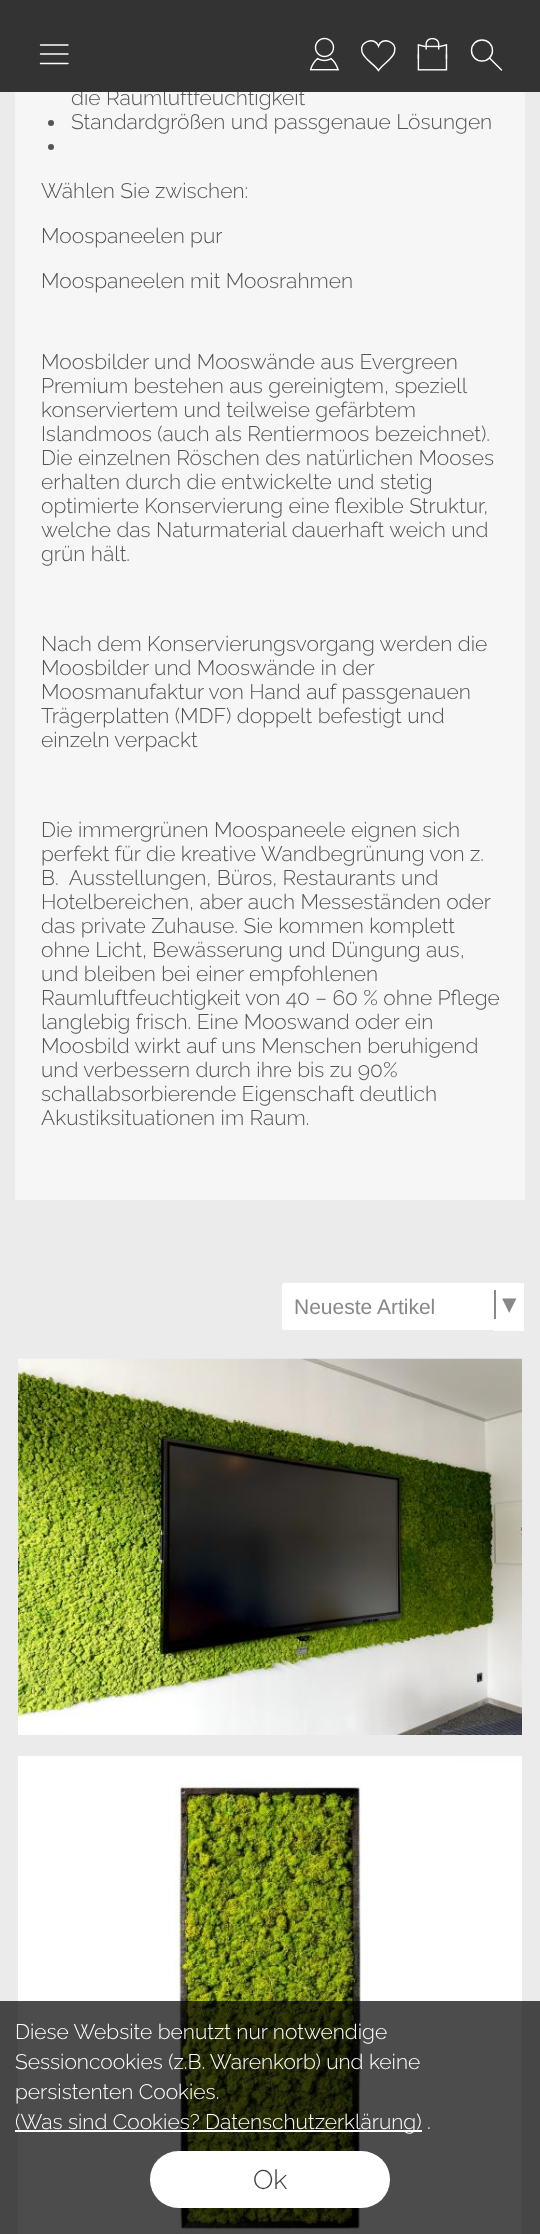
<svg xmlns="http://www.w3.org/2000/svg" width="540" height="2234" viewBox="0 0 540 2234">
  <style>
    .t1 { font: 300 21px Raleway; fill: #555; }
    .t2 { font: 21px Liberation Sans; fill: #888; }
    .t3 { font: 24px DejaVu Sans Mono; fill: #888; }
    .t4 { font: 300 21px Raleway; fill: #fff; }
    .t5 { font: 300 27px Raleway; fill: #3e3e3e; }
  </style>
  <rect width="100%" height="100%" fill="#ebebeb"/>
  <rect x="15" y="92" width="510" height="1108" fill="#f6f6f6"/>
  <text x="71" y="105" class="t1">die Raumluftfeuchtigkeit</text>
  <rect x="0" y="0" width="540" height="92" fill="#333"/>
  <path d="M40.5 63.5H68M40.5 54H68M40.5 45H68" fill="none" stroke="#fff" stroke-width="1.4" stroke-linecap="round"/>
  <image x="309" y="37" width="30" height="34" href="images/1.png"/>
  <path d="M378.5 70.5C374 64 364.5 59.5 362 52C358.5 41.5 375 36 378.5 46C381.5 36 398 41.5 394.5 52C392.5 59.5 382.5 64 378.5 70.5Z" fill="none" stroke="#fff" stroke-width="1.4"/>
  <image x="417" y="37" width="31" height="34" href="images/2.png"/>
  <circle cx="482" cy="50.5" r="10.5" fill="none" stroke="#fff" stroke-width="1.4"/>
  <path d="M489.5 58L501.5 70" fill="none" stroke="#fff" stroke-width="1.4" stroke-linecap="round"/>
  <circle cx="51" cy="123" r="3" fill="#555"/>
  <text x="71" y="129" class="t1">Standardgrößen und passgenaue Lösungen</text>
  <circle cx="51" cy="147" r="3" fill="#555"/>
  <text x="41" y="198" class="t1">Wählen Sie zwischen:</text>
  <text x="41" y="243" class="t1">Moospaneelen pur</text>
  <text x="41" y="288" class="t1">Moospaneelen mit Moosrahmen</text>
  <text x="41" y="369" class="t1">Moosbilder und Mooswände aus Evergreen</text>
  <text x="41" y="393" class="t1">Premium bestehen aus gereinigtem, speziell</text>
  <text x="41" y="417" class="t1">konserviertem und teilweise gefärbtem</text>
  <text x="41" y="441" class="t1">Islandmoos (auch als Rentiermoos bezeichnet).</text>
  <text x="41" y="465" class="t1">Die einzelnen Röschen des natürlichen Mooses</text>
  <text x="41" y="489" class="t1">erhalten durch die entwickelte und stetig</text>
  <text x="41" y="513" class="t1">optimierte Konservierung eine flexible Struktur,</text>
  <text x="41" y="537" class="t1">welche das Naturmaterial dauerhaft weich und</text>
  <text x="41" y="561" class="t1">grün hält.</text>
  <text x="41" y="651" class="t1">Nach dem Konservierungsvorgang werden die</text>
  <text x="41" y="675" class="t1">Moosbilder und Mooswände in der</text>
  <text x="41" y="699" class="t1">Moosmanufaktur von Hand auf passgenauen</text>
  <text x="41" y="723" class="t1">Trägerplatten (MDF) doppelt befestigt und</text>
  <text x="41" y="747" class="t1">einzeln verpackt</text>
  <text x="41" y="837" class="t1">Die immergrünen Moospaneele eignen sich</text>
  <text x="41" y="861" class="t1">perfekt für die kreative Wandbegrünung von z.</text>
  <text x="41" y="885" class="t1" xml:space="preserve">B.  Ausstellungen, Büros, Restaurants und</text>
  <text x="41" y="909" class="t1">Hotelbereichen, aber auch Messeständen oder</text>
  <text x="41" y="933" class="t1">das private Zuhause. Sie kommen komplett</text>
  <text x="41" y="957" class="t1">ohne Licht, Bewässerung und Düngung aus,</text>
  <text x="41" y="981" class="t1">und bleiben bei einer empfohlenen</text>
  <text x="41" y="1005" class="t1">Raumluftfeuchtigkeit von 40 – 60 % ohne Pflege</text>
  <text x="41" y="1029" class="t1">langlebig frisch. Eine Mooswand oder ein</text>
  <text x="41" y="1053" class="t1">Moosbild wirkt auf uns Menschen beruhigend</text>
  <text x="41" y="1077" class="t1">und verbessern durch ihre bis zu 90%</text>
  <text x="41" y="1101" class="t1">schallabsorbierende Eigenschaft deutlich</text>
  <text x="41" y="1125" class="t1">Akustiksituationen im Raum.</text>
  <rect x="283" y="1283" width="211" height="47" fill="#fff"/>
  <rect x="282" y="1284" width="1" height="45" fill="#fff"/>
  <text x="294" y="1314" class="t2">Neueste Artikel</text>
  <rect x="494" y="1283" width="30" height="48" fill="#fff"/>
  <rect x="494" y="1290" width="2" height="29" fill="#888"/>
  <text x="502" y="1312" class="t3">▼</text>
  <image x="18" y="1358" width="504" height="377" href="images/3.png"/>
  <image x="18" y="1756" width="504" height="478" href="images/4.png"/>
  <rect x="0" y="2001" width="540" height="233" fill="#000000b3"/>
  <text x="15" y="2039" class="t4">Diese Website benutzt nur notwendige</text>
  <text x="15" y="2069" class="t4">Sessioncookies (z.B. Warenkorb) und keine</text>
  <text x="15" y="2099" class="t4">persistenten Cookies.</text>
  <rect x="15" y="2130" width="407" height="2" fill="#fff"/>
  <text x="15" y="2129" class="t4">(Was sind Cookies? Datenschutzerklärung) .</text>
  <rect x="150" y="2151" width="240" height="57" rx="28.5" fill="#fff"/>
  <text x="253" y="2189" class="t5">Ok</text>
</svg>
